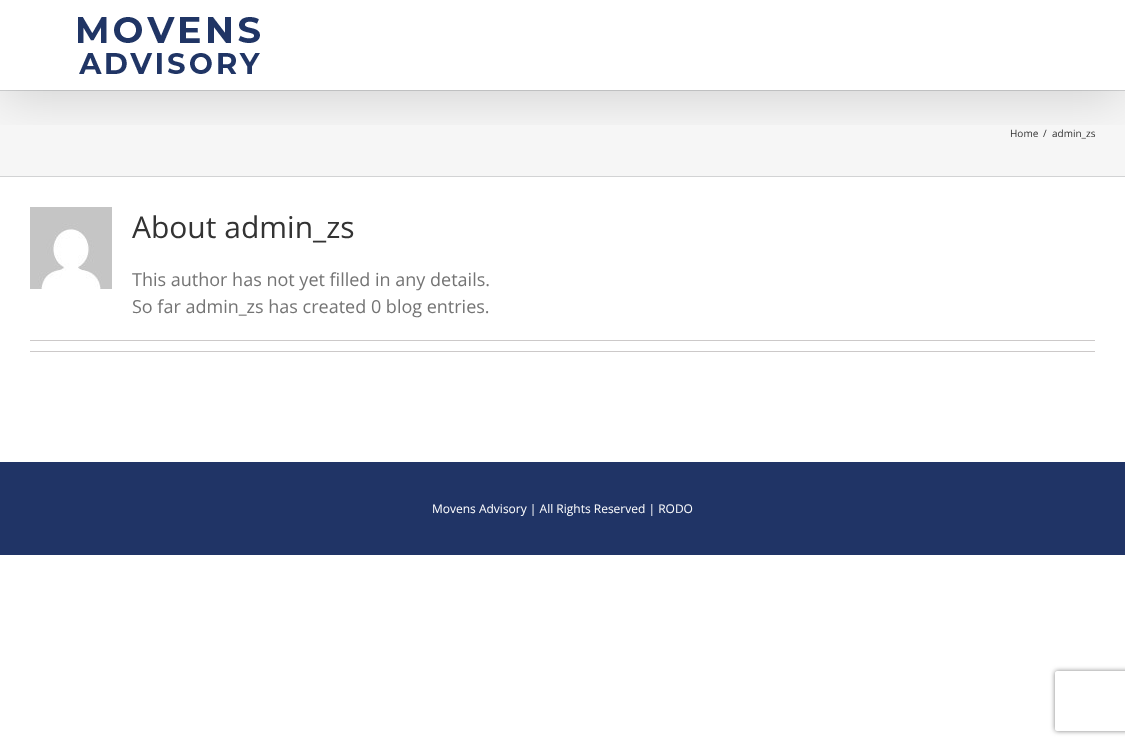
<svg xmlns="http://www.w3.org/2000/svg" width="1125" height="745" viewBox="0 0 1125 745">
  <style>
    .t1 { font: 10px Open Sans; fill: #333; }
    .t2 { font: 30px Open Sans; fill: #333; }
    .t3 { font: 18px Open Sans; fill: #747474; }
    .t4 { font: 12px Open Sans; fill: #fff; }
  </style>
  <defs>
    <clipPath id="clip1"><rect x="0" y="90" width="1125" height="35"/></clipPath>
    <clipPath id="clip2"><path d="M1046 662H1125V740H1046ZM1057 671H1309C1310 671 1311 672 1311 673V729C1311 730 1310 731 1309 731H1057C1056 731 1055 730 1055 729V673C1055 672 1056 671 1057 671Z" clip-rule="evenodd"/></clipPath>
  </defs>
  <rect width="100%" height="100%" fill="#fff"/>
  <rect x="0" y="91" width="1125" height="85" fill="#f6f6f6"/>
  <rect x="0" y="90" width="1125" height="1" fill="#d2d3d4"/>
  <g clip-path="url(#clip1)">
    <rect x="2" y="12" width="1121" height="86" fill="#00000024" filter="blur(25px)"/>
  </g>
  <image x="78" y="17" width="182" height="57" href="images/1.png"/>
  <rect x="0" y="176" width="1125" height="1" fill="#d2d3d4"/>
  <text x="1010" y="137" class="t1">Home</text>
  <text x="1043" y="137" class="t1">/</text>
  <text x="1052" y="137" class="t1">admin_zs</text>
  <image x="30" y="207" width="82" height="82" href="images/2.png"/>
  <text x="132" y="238" class="t2">About admin_zs</text>
  <text x="132" y="286" class="t3">This author has not yet filled in any details.</text>
  <text x="132" y="313" class="t3">So far admin_zs has created 0 blog entries.</text>
  <rect x="30" y="340" width="1065" height="1" fill="#ccc9c9"/>
  <rect x="30" y="351" width="1065" height="1" fill="#ccc9c9"/>
  <rect x="0" y="462" width="1125" height="93" fill="#203466"/>
  <text x="432" y="513" class="t4">Movens Advisory | All Rights Reserved | RODO</text>
  <g clip-path="url(#clip2)">
    <rect x="1055" y="671" width="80" height="60" rx="2" fill="#808080" filter="blur(2.5px)"/>
  </g>
</svg>
